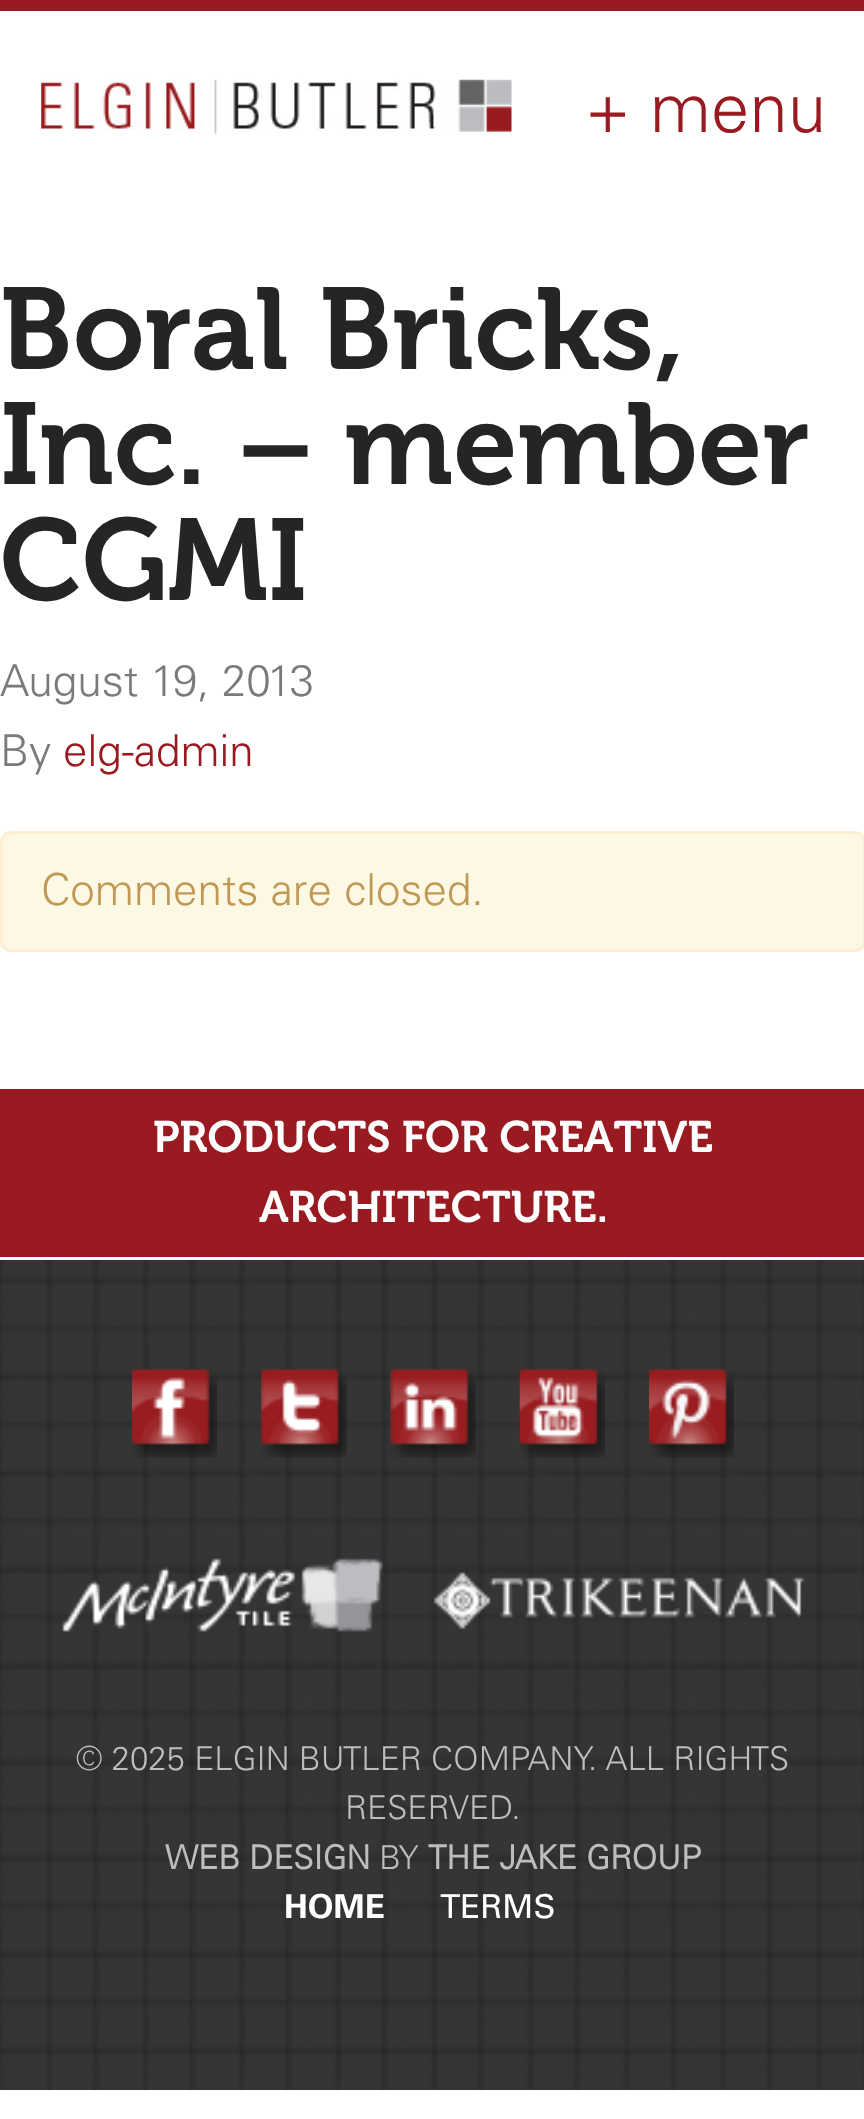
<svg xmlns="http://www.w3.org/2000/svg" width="864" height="2119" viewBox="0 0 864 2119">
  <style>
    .t1 { font: 300 69px 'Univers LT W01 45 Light'; fill: #991a21; }
    .t2 { font: 600 115.5px 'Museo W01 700'; fill: #252524; }
    .t3 { font: 300 44px 'Univers LT W01 45 Light'; fill: #7a7a79; }
    .t4 { font: 300 44px 'Univers LT W01 45 Light'; fill: #991a21; }
    .t5 { font: 300 44px 'Univers LT W01 45 Light'; fill: #c09853; }
    .t6 { font: 600 44px 'Museo W01 700'; fill: #fff; }
    .t7 { font: 300 33px 'Univers LT W01 45 Light'; fill: #bcbdbf; }
    .t8 { font: bold 33px 'Univers LT W01 45 Light'; fill: #bcbdbf; }
    .t9 { font: bold 33px 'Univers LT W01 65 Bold'; fill: #fff; }
    .t10 { font: 33px 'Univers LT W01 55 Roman'; fill: #fff; }
  </style>
  <rect width="100%" height="100%" fill="#fff"/>
  <rect x="0" y="0" width="864" height="11" fill="#991a21"/>
  <image x="41" y="79" width="471" height="56" href="images/1.png"/>
  <text x="585" y="132" class="t1">+ menu</text>
  <text x="0" y="369" class="t2">Boral Bricks,</text>
  <text x="0" y="484" class="t2">Inc. – member</text>
  <text x="0" y="600" class="t2">CGMI</text>
  <text x="0" y="696" class="t3">August 19, 2013</text>
  <text x="0" y="766" class="t3">By</text>
  <text x="63" y="766" class="t4">elg-admin</text>
  <rect x="1.5" y="832.5" width="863" height="118" rx="9.5" fill="#fcf8e3" stroke="#fbeed5" stroke-width="3"/>
  <text x="41" y="905" class="t5">Comments are closed.</text>
  <image x="0" y="1260" width="864" height="830" href="images/2.png"/>
  <rect x="0" y="1089" width="864" height="168" fill="#991a21"/>
  <text x="153" y="1152" class="t6">PRODUCTS FOR CREATIVE</text>
  <text x="259" y="1222" class="t6">ARCHITECTURE.</text>
  <image x="132" y="1369" width="85" height="89" href="images/3.png"/>
  <image x="261" y="1369" width="86" height="89" href="images/4.png"/>
  <image x="390" y="1369" width="86" height="89" href="images/5.png"/>
  <image x="519" y="1369" width="86" height="89" href="images/6.png"/>
  <image x="649" y="1369" width="85" height="89" href="images/7.png"/>
  <image x="62" y="1558" width="321" height="74" href="images/8.png"/>
  <image x="433" y="1572" width="371" height="57" href="images/9.png"/>
  <text x="76" y="1770" class="t7">© 2025 ELGIN BUTLER COMPANY. ALL RIGHTS</text>
  <text x="345" y="1819" class="t7">RESERVED.</text>
  <text x="165" y="1869" class="t8">WEB DESIGN</text>
  <text x="379" y="1869" class="t7">BY</text>
  <text x="428" y="1869" class="t8">THE JAKE GROUP</text>
  <text x="284" y="1918" class="t9">HOME</text>
  <text x="440" y="1918" class="t10">TERMS</text>
</svg>
